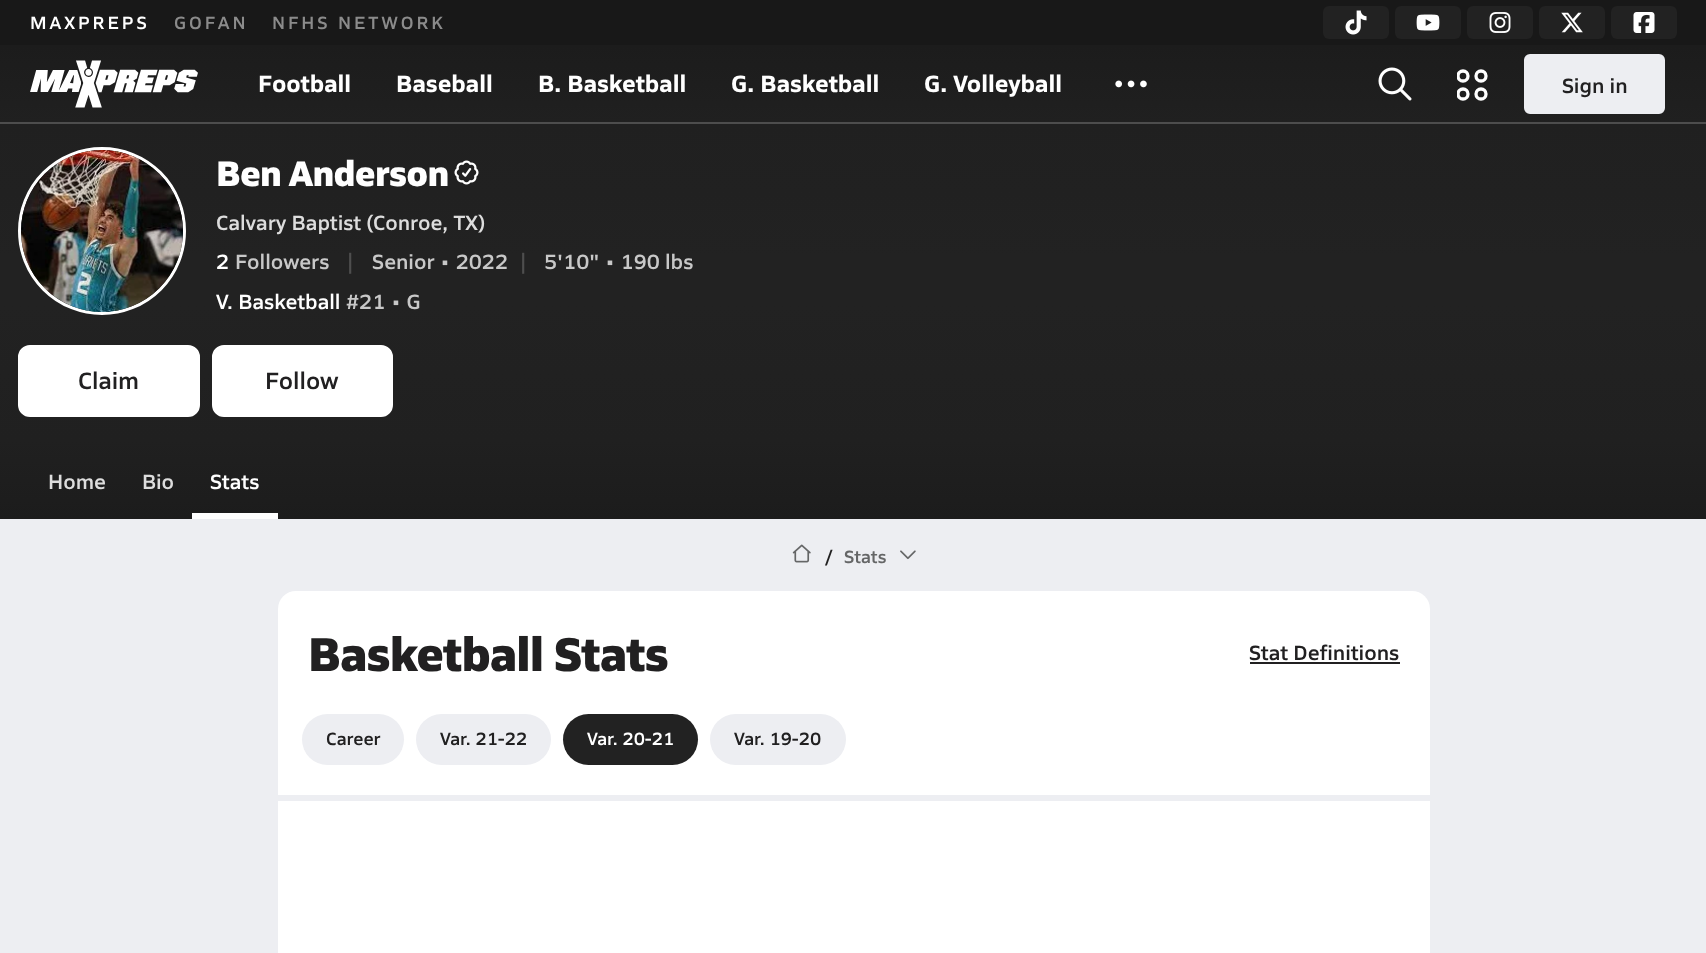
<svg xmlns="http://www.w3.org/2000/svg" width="1706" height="953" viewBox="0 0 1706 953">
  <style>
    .t1 { font: 600 18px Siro; letter-spacing: 3px; fill: #fff; }
    .t2 { font: 600 18px Siro; letter-spacing: 3px; fill: #8b8b8b; }
    .t3 { font: bold 24px Siro; fill: #fff; }
    .t4 { font: 600 21px Siro; fill: #212021; }
    .t5 { font: 800 36px Siro; letter-spacing: -0.75px; fill: #fff; }
    .t6 { font: 600 21px Siro; fill: #ddd; }
    .t7 { font: 600 21px Siro; fill: #fff; }
    .t8 { font: 600 21px Siro; fill: #c8c8c8; }
    .t9 { font: 600 21px Siro; fill: #4e4e4e; }
    .t10 { font: 600 24px Siro; fill: #212021; }
    .t11 { font: 600 18px Siro; fill: #212021; }
    .t12 { font: 600 18px Siro; fill: #656667; }
    .t13 { font: 800 48px Siro; letter-spacing: -0.75px; fill: #212021; }
    .t14 { font: 600 18px Siro; fill: #fff; }
  </style>
  <defs>
    <linearGradient id="g1" gradientUnits="userSpaceOnUse" x1="854" y1="45" x2="854" y2="123"><stop offset="0" stop-color="#1c1c1c"/><stop offset="1" stop-color="#202020"/></linearGradient>
    <clipPath id="clip1"><rect x="1457" y="68" width="33" height="33"/></clipPath>
    <linearGradient id="g2" gradientUnits="userSpaceOnUse" x1="854" y1="123" x2="854" y2="441"><stop offset="0" stop-color="#202020"/><stop offset="0.43" stop-color="#222"/><stop offset="0.57" stop-color="#222"/><stop offset="1" stop-color="#202020"/></linearGradient>
    <linearGradient id="g3" gradientUnits="userSpaceOnUse" x1="854" y1="441" x2="854" y2="519"><stop offset="0" stop-color="#202020"/><stop offset="1" stop-color="#1c1c1c"/></linearGradient>
  </defs>
  <rect width="100%" height="100%" fill="#edeef2"/>
  <rect x="0" y="0" width="1706" height="45" fill="#181818"/>
  <text x="30" y="29" class="t1">MAXPREPS</text>
  <text x="174" y="29" class="t2">GOFAN</text>
  <text x="272" y="29" class="t2">NFHS NETWORK</text>
  <rect x="1323" y="6" width="66" height="33" rx="6" fill="#222"/>
  <image x="1345" y="10" width="22" height="25" href="images/1.png"/>
  <rect x="1395" y="6" width="66" height="33" rx="6" fill="#222"/>
  <image x="1416" y="14" width="24" height="17" href="images/2.png"/>
  <rect x="1467" y="6" width="66" height="33" rx="6" fill="#222"/>
  <image x="1489" y="12" width="22" height="21" href="images/3.png"/>
  <rect x="1539" y="6" width="66" height="33" rx="6" fill="#222"/>
  <image x="1561" y="12" width="22" height="21" href="images/4.png"/>
  <rect x="1611" y="6" width="66" height="33" rx="6" fill="#222"/>
  <image x="1633" y="12" width="22" height="21" href="images/5.png"/>
  <rect x="0" y="45" width="1706" height="77" fill="url(#g1)"/>
  <image x="30" y="60" width="168" height="48" href="images/6.png"/>
  <text x="258" y="92" class="t3">Football</text>
  <text x="396" y="92" class="t3">Baseball</text>
  <text x="538" y="92" class="t3">B. Basketball</text>
  <text x="731" y="92" class="t3">G. Basketball</text>
  <text x="924" y="92" class="t3">G. Volleyball</text>
  <image x="1115" y="80" width="32" height="8" href="images/7.png"/>
  <image x="1378" y="67" width="34" height="34" href="images/8.png"/>
  <g clip-path="url(#clip1)">
    <circle cx="1463" cy="76" r="5" fill="none" stroke="#fff" stroke-width="3.3"/>
  </g>
  <circle cx="1481" cy="76" r="5" fill="none" stroke="#fff" stroke-width="3.3"/>
  <g clip-path="url(#clip1)">
    <circle cx="1463" cy="94" r="5" fill="none" stroke="#fff" stroke-width="3.3"/>
  </g>
  <circle cx="1481" cy="94" r="5" fill="none" stroke="#fff" stroke-width="3.3"/>
  <rect x="1525" y="55" width="139" height="58" rx="5" fill="#edeef2" stroke="#edeef2" stroke-width="2"/>
  <text x="1562" y="93" class="t4">Sign in</text>
  <rect x="0" y="122" width="1706" height="2" fill="#4d4d4d"/>
  <rect x="0" y="124" width="1706" height="317" fill="url(#g2)"/>
  <circle cx="102" cy="231" r="82.5" fill="none" stroke="#fff" stroke-width="3"/>
  <image x="21" y="150" width="162" height="162" href="images/9.png"/>
  <text x="216" y="186" class="t5">Ben Anderson</text>
  <image x="454" y="160" width="25" height="25" href="images/10.png"/>
  <text x="216" y="230" class="t6">Calvary Baptist (Conroe, TX)</text>
  <text x="216" y="269" class="t7">2</text>
  <text x="235" y="269" class="t8">Followers</text>
  <text x="347" y="269" class="t9">|</text>
  <text x="372" y="269" class="t8">Senior • 2022</text>
  <text x="520" y="269" class="t9">|</text>
  <text x="544" y="269" class="t8">5'10" • 190 lbs</text>
  <text x="216" y="309" class="t7">V. Basketball</text>
  <text x="346" y="309" class="t8">#21 • G</text>
  <rect x="19" y="346" width="180" height="70" rx="11" fill="#fff" stroke="#fff" stroke-width="2"/>
  <text x="78" y="389" class="t10">Claim</text>
  <rect x="213" y="346" width="179" height="70" rx="11" fill="#fff" stroke="#fff" stroke-width="2"/>
  <text x="265" y="389" class="t10">Follow</text>
  <rect x="0" y="441" width="1706" height="78" fill="url(#g3)"/>
  <text x="48" y="489" class="t6">Home</text>
  <text x="142" y="489" class="t6">Bio</text>
  <text x="210" y="489" class="t7">Stats</text>
  <rect x="192" y="513" width="86" height="6" fill="#fff"/>
  <image x="792" y="544" width="19" height="19" href="images/11.png"/>
  <text x="825" y="563" class="t11">/</text>
  <text x="844" y="563" class="t12">Stats</text>
  <image x="900" y="550" width="16" height="10" href="images/12.png"/>
  <rect x="278" y="591" width="1152" height="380" rx="18" fill="#fff"/>
  <text x="308" y="671" class="t13">Basketball Stats</text>
  <text x="1249" y="660" class="t4">Stat Definitions</text>
  <rect x="1250" y="662" width="150" height="2" fill="#212021"/>
  <rect x="278" y="795" width="1152" height="6" fill="#edeef2"/>
  <rect x="302" y="714" width="102" height="51" rx="25.5" fill="#edeef2"/>
  <text x="326" y="745" class="t11">Career</text>
  <rect x="416" y="714" width="135" height="51" rx="25.5" fill="#edeef2"/>
  <text x="440" y="745" class="t11">Var. 21-22</text>
  <rect x="563" y="714" width="135" height="51" rx="25.5" fill="#222"/>
  <text x="587" y="745" class="t14">Var. 20-21</text>
  <rect x="710" y="714" width="136" height="51" rx="25.5" fill="#edeef2"/>
  <text x="734" y="745" class="t11">Var. 19-20</text>
</svg>
